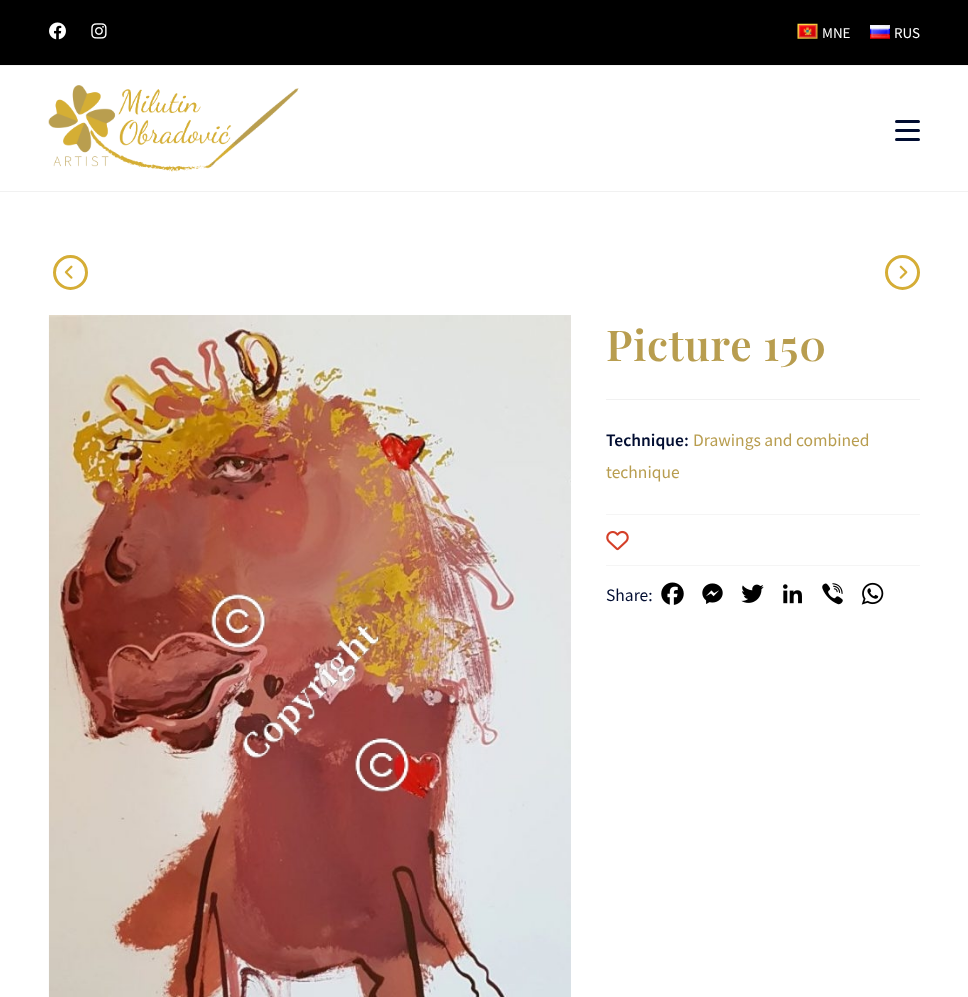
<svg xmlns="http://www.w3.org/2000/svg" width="968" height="997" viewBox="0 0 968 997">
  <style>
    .t1 { font: 15px Source Sans Pro; fill: #fff; }
    .t2 { font: 600 42.5px Playfair Display; letter-spacing: 0.75px; fill: #b89d4f; }
    .t3 { font: 600 17.5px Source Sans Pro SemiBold; fill: #000c30; }
    .t4 { font: 17.5px Source Sans Pro; fill: #b89d4f; }
    .t5 { font: 17.5px Source Sans Pro; fill: #000c30; }
  </style>
  <rect width="100%" height="100%" fill="#fff"/>
  <rect x="0" y="0" width="968" height="65" fill="#000"/>
  <rect x="0" y="65" width="968" height="1" fill="#f5f5f5"/>
  <image x="49" y="22" width="17" height="18" href="images/1.png"/>
  <image x="91" y="23" width="16" height="16" href="images/2.png"/>
  <image x="797" y="23" width="21" height="16" href="images/3.png"/>
  <text x="822" y="38" class="t1">MNE</text>
  <image x="870" y="25" width="20" height="14" href="images/4.png"/>
  <text x="894" y="38" class="t1">RUS</text>
  <rect x="0" y="191" width="968" height="1" fill="#f1f1f1"/>
  <image x="48" y="85" width="251" height="87" href="images/5.png"/>
  <rect x="895" y="129" width="25" height="3" rx="1.5" fill="#000c30"/>
  <rect x="895" y="120" width="25" height="3" rx="1.5" fill="#000c30"/>
  <rect x="895" y="138" width="25" height="3" rx="1.5" fill="#000c30"/>
  <circle cx="70.5" cy="272.5" r="16" fill="none" stroke="#d5ad36" stroke-width="3"/>
  <image x="64" y="265" width="9" height="14" href="images/6.png"/>
  <circle cx="902.5" cy="272.5" r="16" fill="none" stroke="#d5ad36" stroke-width="3"/>
  <image x="899" y="265" width="9" height="14" href="images/7.png"/>
  <image x="48" y="315" width="523" height="682" href="images/8.png"/>
  <rect x="606" y="399" width="314" height="1" fill="#f1f1f1"/>
  <text x="606" y="361" class="t2">Picture 150</text>
  <rect x="606" y="514" width="314" height="1" fill="#f5f5f5"/>
  <text x="606" y="446" class="t3">Technique:</text>
  <text x="693" y="446" class="t4">Drawings and combined</text>
  <text x="606" y="478" class="t4">technique</text>
  <image x="606" y="530" width="23" height="21" href="images/9.png"/>
  <rect x="606" y="565" width="314" height="1" fill="#f5f5f5"/>
  <text x="606" y="601" class="t5">Share:</text>
  <image x="661" y="582" width="23" height="23" href="images/10.png"/>
  <image x="702" y="583" width="21" height="21" href="images/11.png"/>
  <image x="741" y="584" width="23" height="19" href="images/12.png"/>
  <image x="783" y="584" width="19" height="20" href="images/13.png"/>
  <image x="822" y="583" width="21" height="22" href="images/14.png"/>
  <image x="861" y="582" width="23" height="23" href="images/15.png"/>
</svg>
